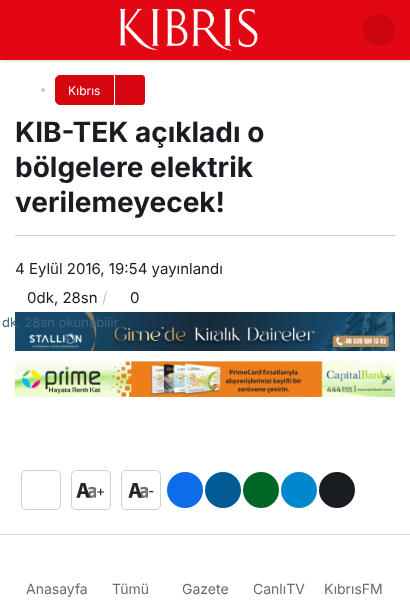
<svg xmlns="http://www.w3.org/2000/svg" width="410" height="614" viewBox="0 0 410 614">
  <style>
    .t1 { font: 12px Inter; fill: #fff; }
    .t2 { font: bold 28px Inter; fill: #191c20; }
    .t3 { font: 15px Inter; fill: #191c20; }
    .t4 { font: 13px Inter; fill: #41677f; }
    .t5 { font: 15px Inter; fill: #c6c6c7; }
    .t6 { font: 14px Inter; fill: #10182f; }
    .t7 { font: 14px Inter; fill: #6b6b6b; }
  </style>
  <rect width="100%" height="100%" fill="#fff"/>
  <rect x="1" y="0" width="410" height="60" fill="#0000001a" filter="blur(1.5px)"/>
  <rect x="1" y="0" width="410" height="58" fill="#00000080" filter="blur(2.5px)"/>
  <rect x="0" y="0" width="410" height="60" fill="#e30613"/>
  <image x="119" y="8" width="139" height="43" href="images/1.png"/>
  <circle cx="379" cy="30" r="16" fill="#cc0511"/>
  <circle cx="43" cy="90" r="2" fill="#ccc"/>
  <path d="M60 75.5H113.5V104.5H60C57.5 104.5 55.5 102.5 55.5 100V80C55.5 77.5 57.5 75.5 60 75.5Z" fill="#d7050f" stroke="#d7050f"/>
  <text x="68" y="95" class="t1">Kıbrıs</text>
  <path d="M115 75H142C143.5 75 145 76.5 145 78V102C145 103.5 143.5 105 142 105H115Z" fill="#d7050f"/>
  <rect x="115" y="75" width="1" height="30" fill="#b2212c"/>
  <text x="15" y="142" class="t2">KIB-TEK açıkladı o</text>
  <text x="15" y="177" class="t2">bölgelere elektrik</text>
  <text x="15" y="212" class="t2">verilemeyecek!</text>
  <rect x="15" y="235" width="380" height="1" fill="#ced0d4"/>
  <text x="15" y="274" class="t3">4 Eylül 2016, 19:54 yayınlandı</text>
  <text x="27" y="303" class="t3">0dk, 28sn</text>
  <image x="15" y="312" width="380" height="39" href="images/2.png"/>
  <text x="2" y="327" class="t4">dk, 28sn okunabilir</text>
  <text x="102" y="303" class="t5">/</text>
  <text x="130" y="303" class="t3">0</text>
  <image x="15" y="361" width="380" height="36" href="images/3.png"/>
  <rect x="21.5" y="470.5" width="39" height="39" rx="4.5" fill="none" stroke="#ced0d4"/>
  <rect x="71.5" y="470.5" width="39" height="39" rx="4.5" fill="none" stroke="#ced0d4"/>
  <image x="76" y="483" width="20" height="15" href="images/4.png"/>
  <text x="96" y="496" class="t6">+</text>
  <rect x="121.5" y="470.5" width="39" height="39" rx="4.5" fill="none" stroke="#ced0d4"/>
  <image x="128" y="483" width="20" height="15" href="images/4.png"/>
  <text x="148" y="496" class="t6">-</text>
  <circle cx="185" cy="490" r="18" fill="#0d6ce7"/>
  <circle cx="223" cy="490" r="18" fill="#005b94"/>
  <circle cx="261" cy="490" r="18" fill="#006625"/>
  <circle cx="299" cy="490" r="18" fill="#08c"/>
  <circle cx="337" cy="490" r="18" fill="#191c20"/>
  <rect x="0" y="534" width="410" height="1" fill="#dedee0"/>
  <text x="26" y="594" class="t7">Anasayfa</text>
  <text x="112" y="594" class="t7">Tümü</text>
  <text x="182" y="594" class="t7">Gazete</text>
  <text x="253" y="594" class="t7">CanlıTV</text>
  <text x="324" y="594" class="t7">KıbrısFM</text>
</svg>
